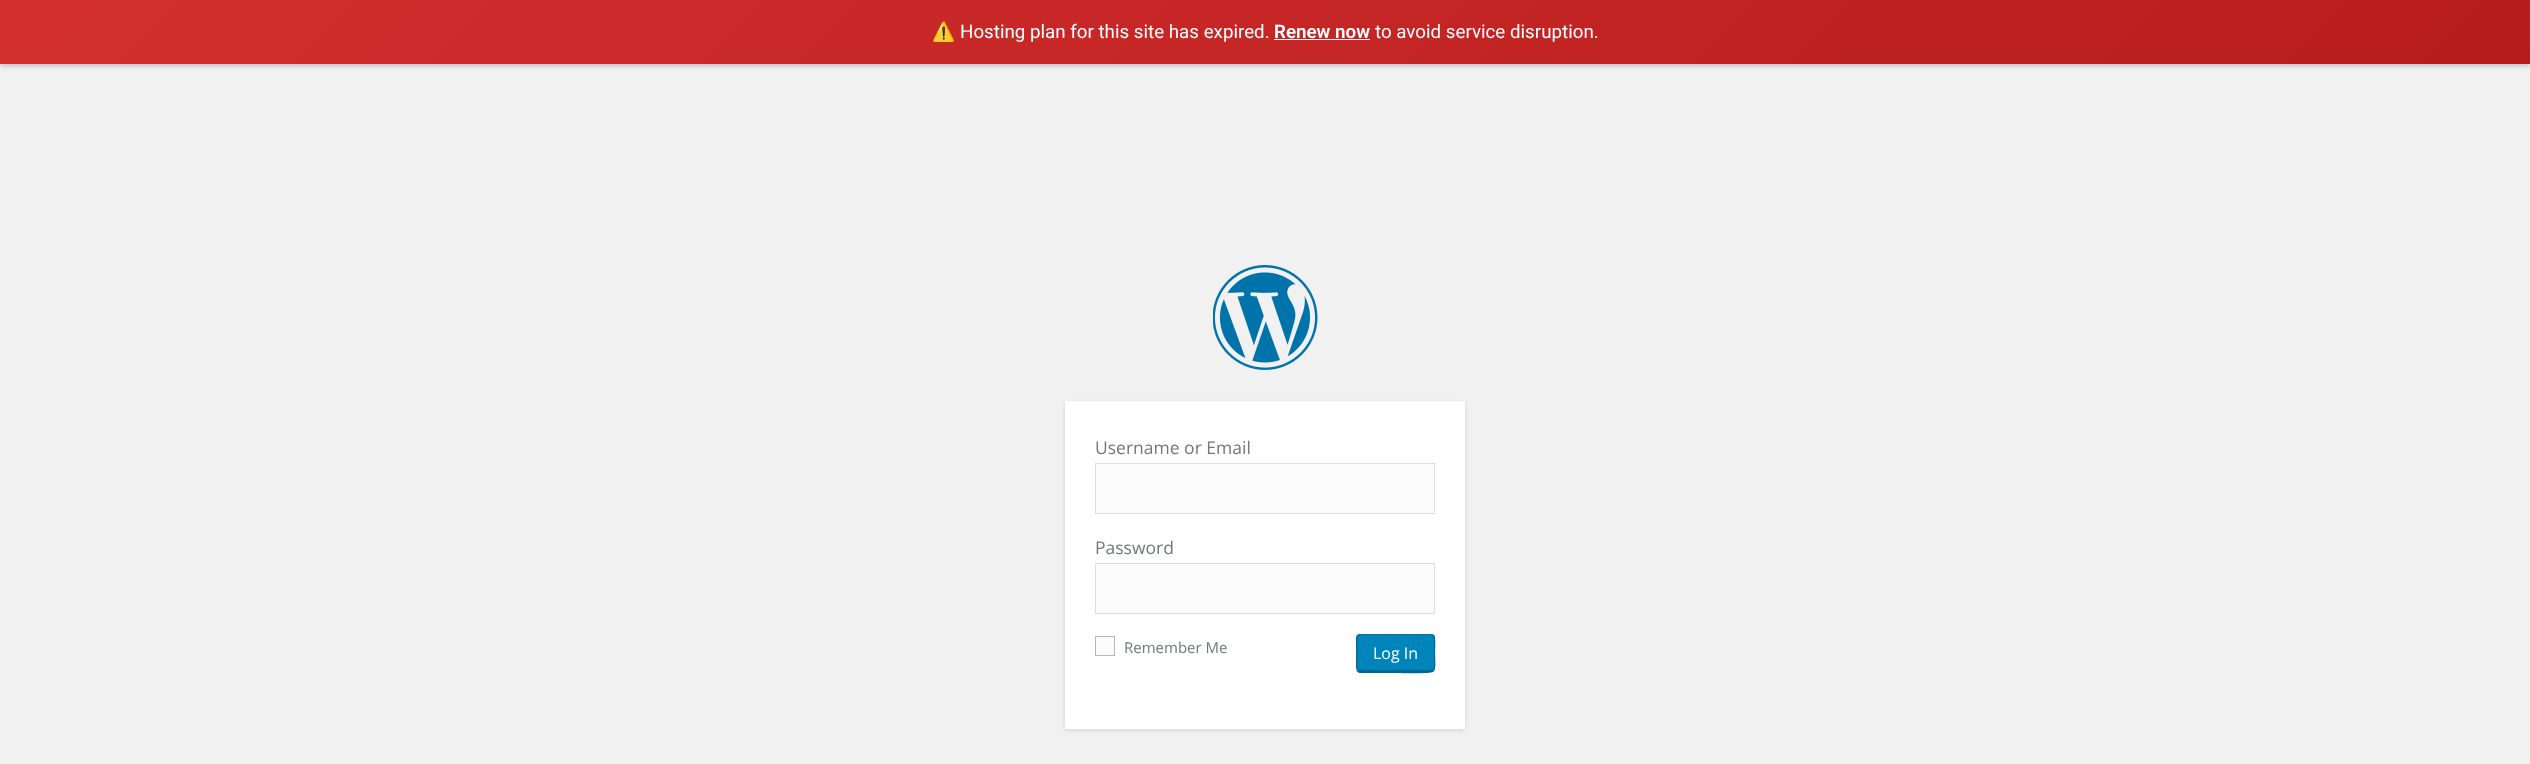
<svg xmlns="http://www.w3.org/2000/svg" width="2530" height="764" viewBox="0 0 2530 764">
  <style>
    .t1 { font: 18.75px Noto Color Emoji; fill: #fff; }
    .t2 { font: 18.75px Roboto; fill: #fff; }
    .t3 { font: 600 18.75px Roboto; fill: #fff; }
    .t4 { font: 17.5px Open Sans; fill: #72777c; }
    .t5 { font: 15px Open Sans; fill: #72777c; }
    .t6 { font: 16px Open Sans; fill: #fff; }
  </style>
  <defs>
    <linearGradient id="g1" gradientUnits="userSpaceOnUse" x1="617" y1="-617" x2="1913" y2="680"><stop offset="0" stop-color="#d32f2f"/><stop offset="1" stop-color="#b71c1c"/></linearGradient>
  </defs>
  <rect width="100%" height="100%" fill="#f1f1f1"/>
  <rect x="0" y="3" width="2530" height="63" fill="#00000033" filter="blur(2.5px)"/>
  <rect x="0" y="0" width="2530" height="64" fill="url(#g1)"/>
  <text x="932" y="38" class="t1">⚠️</text>
  <text x="960" y="38" class="t2">Hosting plan for this site has expired.</text>
  <text x="1274" y="38" class="t3">Renew now</text>
  <rect x="1274" y="39" width="96" height="1" fill="#fff"/>
  <text x="1375" y="38" class="t2">to avoid service disruption.</text>
  <image x="1213" y="265" width="105" height="105" href="images/1.png"/>
  <rect x="1065" y="403" width="400" height="327" fill="#00000021" filter="blur(2px)"/>
  <rect x="1065" y="401" width="400" height="328" fill="#fff"/>
  <text x="1095" y="454" class="t4">Username or Email</text>
  <rect x="1095.5" y="463.5" width="339" height="50" fill="#fbfbfb" stroke="#ddd"/>
  <text x="1095" y="554" class="t4">Password</text>
  <rect x="1095.5" y="563.5" width="339" height="50" fill="#fbfbfb" stroke="#ddd"/>
  <rect x="1095.5" y="636.5" width="19" height="19" fill="#fbfbfb" stroke="#b4b9be"/>
  <text x="1124" y="653" class="t5">Remember Me</text>
  <path d="M1356 638V659C1356 675 1355 673 1372 673H1396C1400 673 1431 674 1433 672C1435 671 1435 669 1435 668C1435 670 1433 671 1431 671H1360C1358 671 1356 670 1356 668Z" fill="#006799"/>
  <rect x="1356" y="634" width="79" height="37" rx="4" fill="#0085ba"/>
  <path d="M1358 635.5L1359.5 634.5H1431.5L1433.5 635.5" fill="none" stroke="#0073aa" stroke-width="1.2"/>
  <path d="M1433.5 635.5C1435.5 637.5 1434.5 649.5 1434.5 652.5C1434.5 672.5 1438.5 670.5 1419.5 670.5H1372C1353 670.5 1357 672.5 1357 652.5C1357 649.5 1355.5 637.5 1358 635.5" fill="none" stroke="#006799" stroke-width="1.2"/>
  <text x="1373" y="659" class="t6">Log In</text>
</svg>
